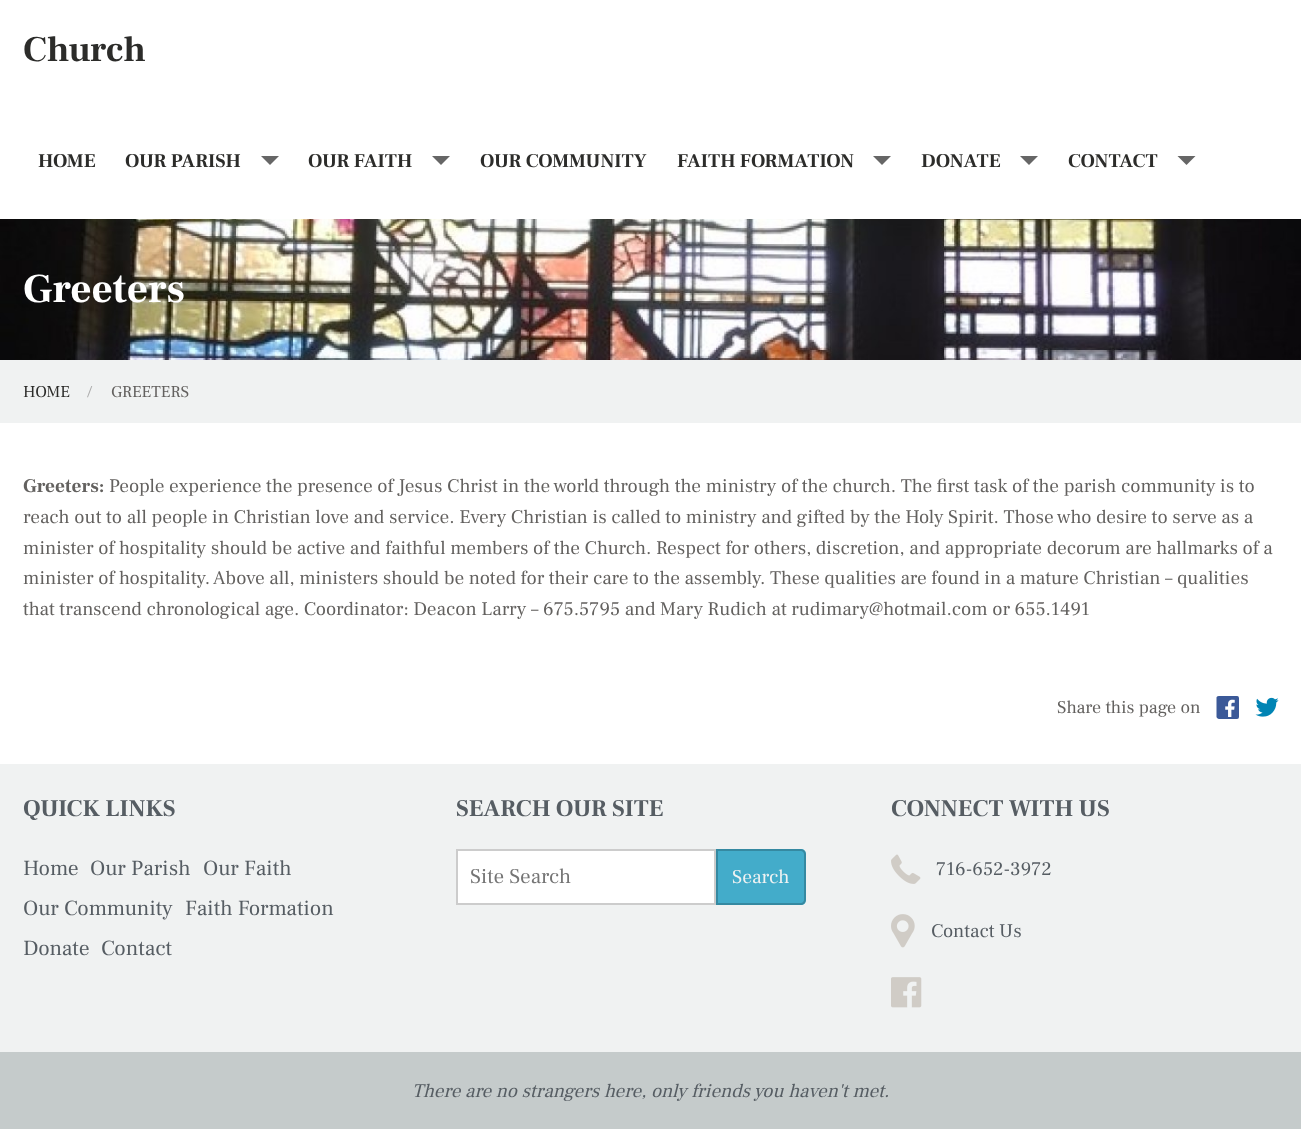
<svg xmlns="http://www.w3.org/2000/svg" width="1301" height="1129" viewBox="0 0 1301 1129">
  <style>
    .t1 { font: bold 36px Frank Ruhl Libre; fill: #2c2c2a; }
    .t2 { font: bold 19.5px Frank Ruhl Libre; fill: #2c2c2a; }
    .t3 { font: bold 41px Frank Ruhl Libre; fill: #fff; }
    .t4 { font: 16.5px Frank Ruhl Libre; fill: #2c2c2a; }
    .t5 { font: 16.5px Frank Ruhl Libre; fill: #aaa; }
    .t6 { font: 16.5px Frank Ruhl Libre; fill: #63615f; }
    .t7 { font: bold 19.2px Frank Ruhl Libre; fill: #63615f; }
    .t8 { font: 19.2px Frank Ruhl Libre; fill: #63615f; }
    .t9 { font: 18px Frank Ruhl Libre; fill: #63615f; }
    .t10 { font: bold 24px Frank Ruhl Libre; fill: #565d63; }
    .t11 { font: 21.5px Frank Ruhl Libre; fill: #565d63; }
    .t12 { font: 21px Frank Ruhl Libre; fill: #757575; }
    .t13 { font: 19.5px Frank Ruhl Libre; fill: #f0f2f2; }
    .t14 { font: 19.2px Frank Ruhl Libre; fill: #565d63; }
    .t15 { font: italic 19.2px Frank Ruhl Libre; fill: #565d63; }
  </style>
  <rect width="100%" height="100%" fill="#fff"/>
  <text x="23" y="61" class="t1">Church</text>
  <text x="38" y="167" class="t2">HOME</text>
  <text x="125" y="167" class="t2">OUR PARISH</text>
  <path d="M261 156H279L270 165Z" fill="#666"/>
  <text x="308" y="167" class="t2">OUR FAITH</text>
  <path d="M432 156H450L441 165Z" fill="#666"/>
  <text x="480" y="167" class="t2">OUR COMMUNITY</text>
  <text x="677" y="167" class="t2">FAITH FORMATION</text>
  <path d="M873 156H891L882 165Z" fill="#666"/>
  <text x="921" y="167" class="t2">DONATE</text>
  <path d="M1020 156H1038L1029 165Z" fill="#666"/>
  <text x="1068" y="167" class="t2">CONTACT</text>
  <path d="M1177.5 156H1195.5L1186.5 165Z" fill="#666"/>
  <image x="0" y="219" width="1301" height="141" href="images/1.png"/>
  <text x="23" y="302" class="t3">Greeters</text>
  <rect x="0" y="360" width="1301" height="63" fill="#f0f2f2"/>
  <text x="23" y="397" class="t4">HOME</text>
  <text x="87" y="397" class="t5">/</text>
  <text x="111" y="397" class="t6">GREETERS</text>
  <text x="23" y="492" class="t7">Greeters:</text>
  <text x="109" y="492" class="t8">People experience the presence of Jesus Christ in the world through the ministry of the church. The first task of the parish community is to</text>
  <text x="23" y="523" class="t8">reach out to all people in Christian love and service. Every Christian is called to ministry and gifted by the Holy Spirit. Those who desire to serve as a</text>
  <text x="23" y="554" class="t8">minister of hospitality should be active and faithful members of the Church. Respect for others, discretion, and appropriate decorum are hallmarks of a</text>
  <text x="23" y="584" class="t8">minister of hospitality. Above all, ministers should be noted for their care to the assembly. These qualities are found in a mature Christian – qualities</text>
  <text x="23" y="615" class="t8">that transcend chronological age. Coordinator: Deacon Larry – 675.5795 and Mary Rudich at rudimary@hotmail.com or 655.1491</text>
  <text x="1057" y="713" class="t9">Share this page on</text>
  <rect x="1218" y="697" width="20" height="21" rx="1" fill="none" stroke="#3b5998" stroke-width="2"/>
  <image x="1216" y="696" width="22" height="22" href="images/2.png"/>
  <image x="1255" y="697" width="24" height="20" href="images/3.png"/>
  <rect x="0" y="764" width="1301" height="288" fill="#f0f2f2"/>
  <text x="23" y="816" class="t10">QUICK LINKS</text>
  <text x="23" y="875" class="t11">Home</text>
  <text x="90" y="875" class="t11">Our Parish</text>
  <text x="203" y="875" class="t11">Our Faith</text>
  <text x="23" y="915" class="t11">Our Community</text>
  <text x="185" y="915" class="t11">Faith Formation</text>
  <text x="23" y="955" class="t11">Donate</text>
  <text x="101" y="955" class="t11">Contact</text>
  <text x="456" y="816" class="t10">SEARCH OUR SITE</text>
  <rect x="457" y="850" width="258" height="54" fill="#fff" stroke="#ccc" stroke-width="2"/>
  <text x="470" y="883" class="t12">Site Search</text>
  <path d="M716 849H801C804 849 806 851 806 854V900C806 903 804 905 801 905H716Z" fill="#43acca"/>
  <path d="M717 850H801C803 850 805 852 805 854V900C805 902 803 904 801 904H717Z" fill="none" stroke="#00000033" stroke-width="2"/>
  <text x="732" y="883" class="t13">Search</text>
  <text x="891" y="816" class="t10">CONNECT WITH US</text>
  <image x="891" y="854" width="30" height="30" href="images/4.png"/>
  <text x="936" y="875" class="t14">716-652-3972</text>
  <image x="891" y="914" width="24" height="34" href="images/5.png"/>
  <text x="931" y="937" class="t14">Contact Us</text>
  <image x="891" y="977" width="31" height="31" href="images/6.png"/>
  <rect x="0" y="1052" width="1301" height="77" fill="#c5cbcb"/>
  <text x="412" y="1097" class="t15">There are no strangers here, only friends you haven't met.</text>
</svg>
